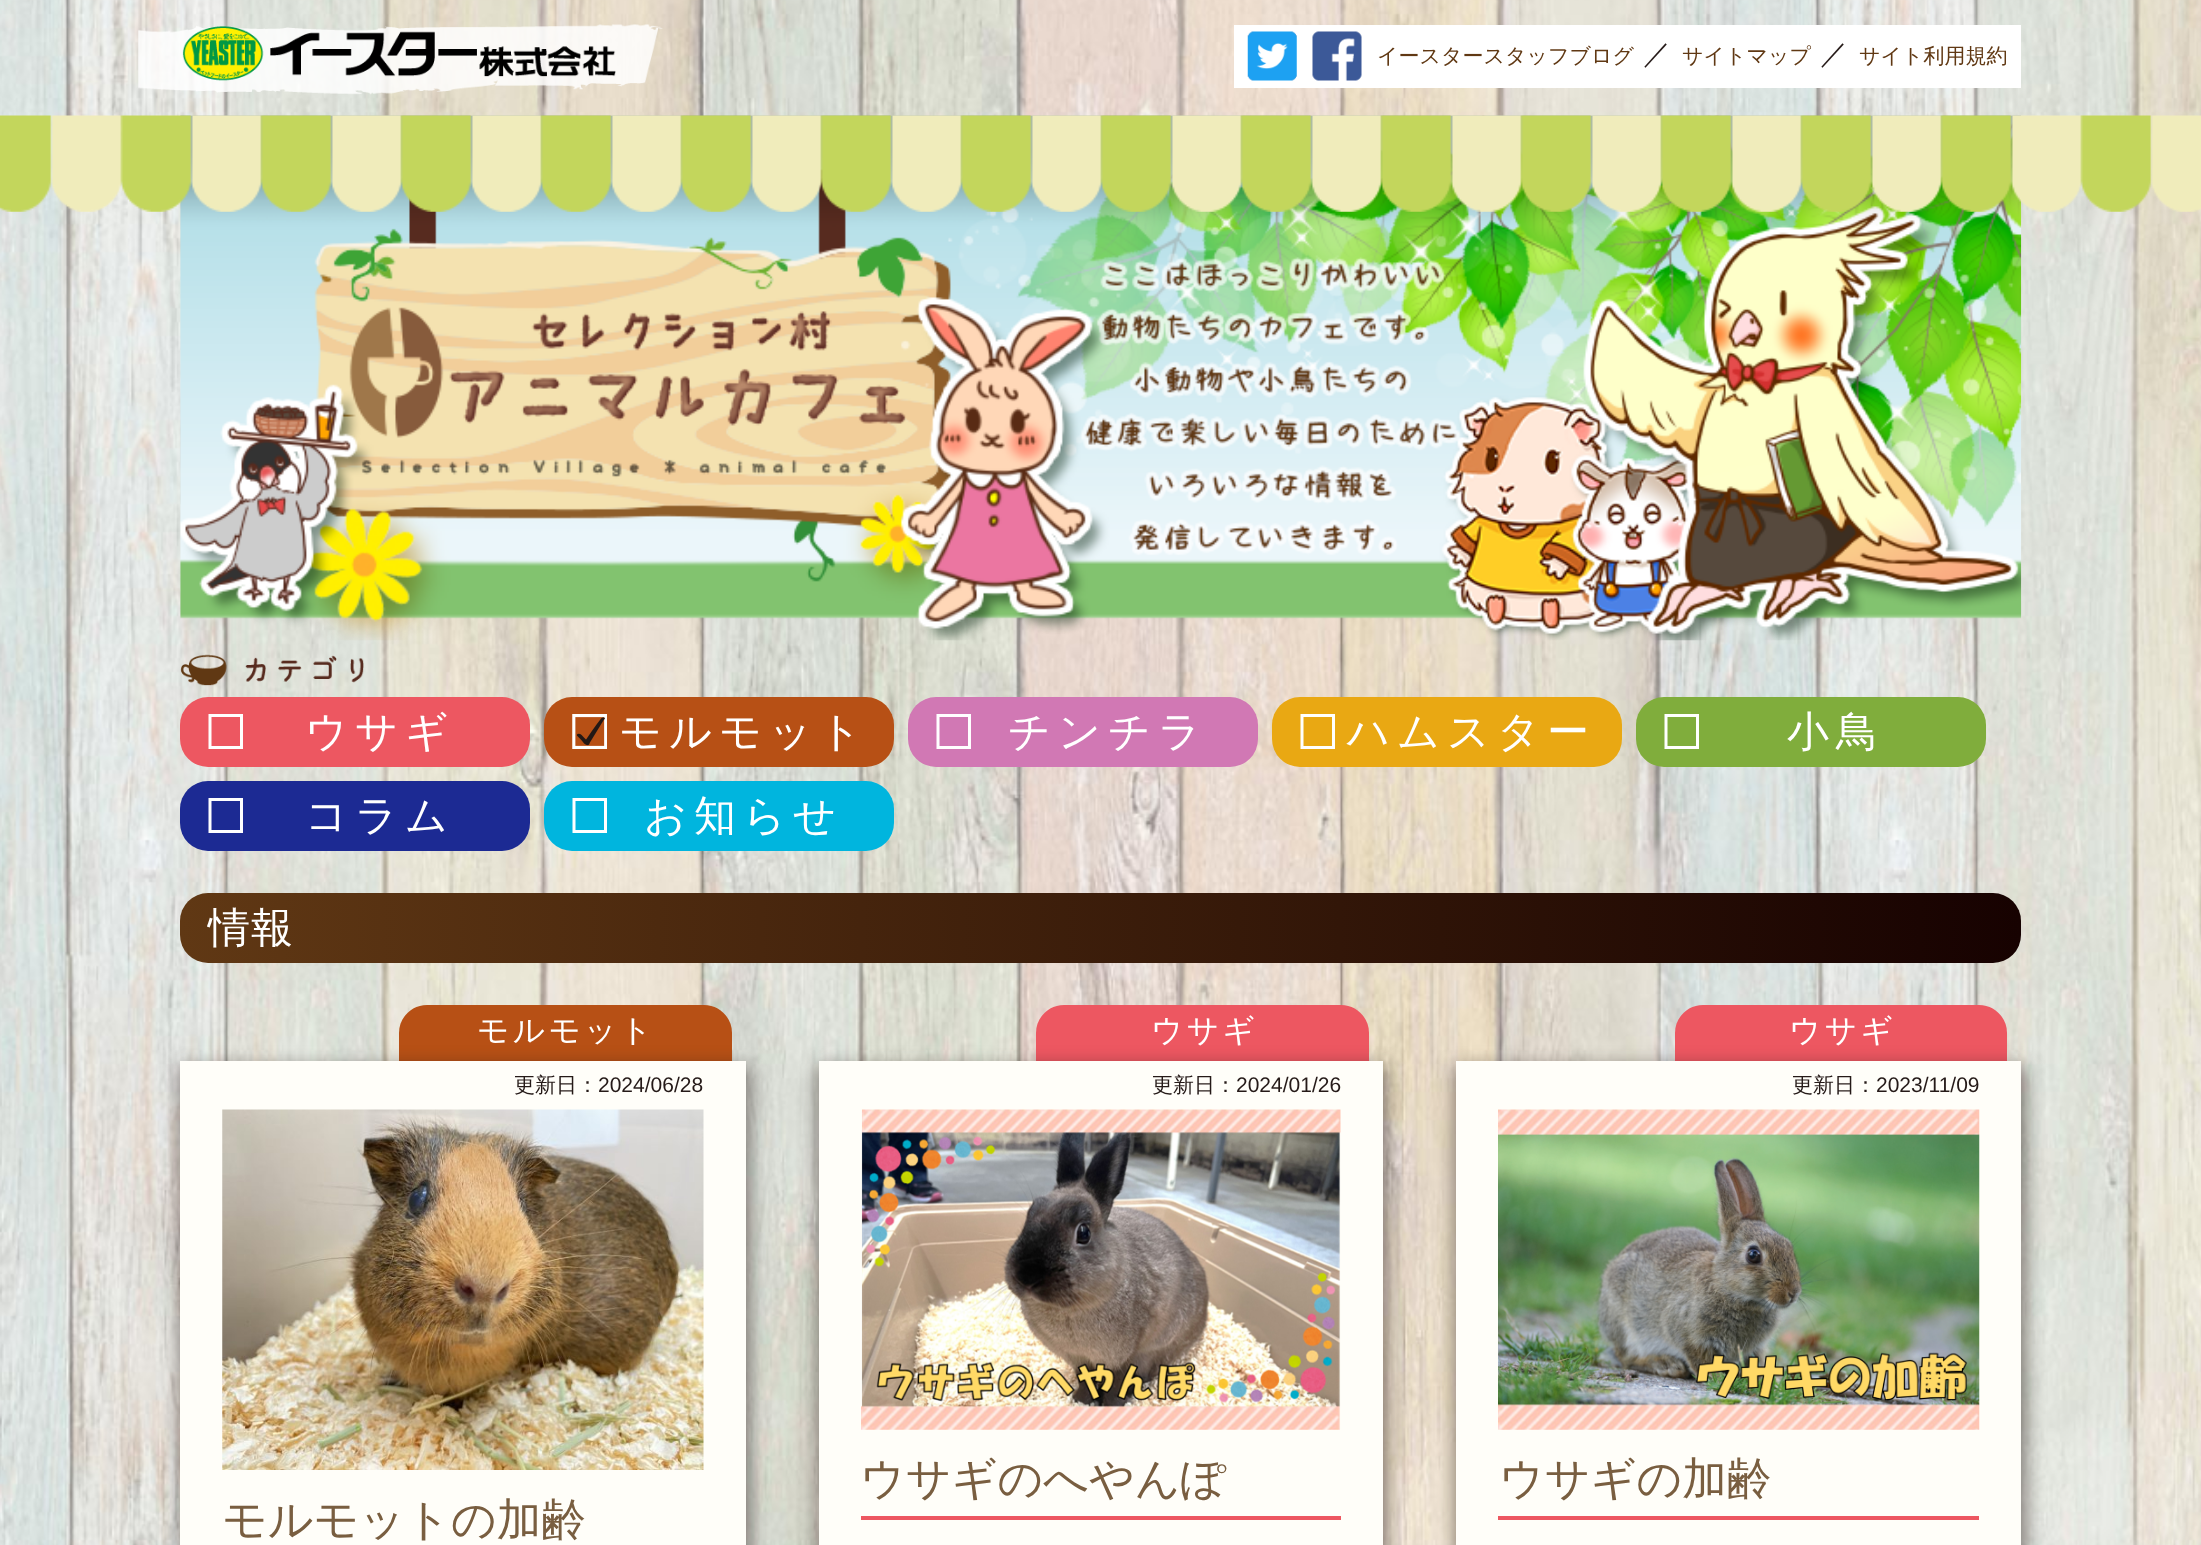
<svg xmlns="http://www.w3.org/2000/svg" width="2201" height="1545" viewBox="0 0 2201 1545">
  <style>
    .t1 { font: 500 21px WenQuanYi Zen Hei; fill: #603813; }
    .t2 { font: 500 28px WenQuanYi Zen Hei; letter-spacing: 1px; fill: #251a18; }
    .t3 { font: 500 42px WenQuanYi Zen Hei; letter-spacing: 7px; fill: #fff; }
    .t4 { font: 500 42px WenQuanYi Zen Hei; letter-spacing: 1px; fill: #fff; }
    .t5 { font: 500 31.5px WenQuanYi Zen Hei; letter-spacing: 3.5px; fill: #fff; }
    .t6 { font: 500 21px WenQuanYi Zen Hei; fill: #251a18; }
    .t7 { font: 21px Liberation Sans; fill: #251a18; }
    .t8 { font: 500 44.75px WenQuanYi Zen Hei; fill: #795e40; }
  </style>
  <defs>
    <linearGradient id="g1" gradientUnits="userSpaceOnUse" x1="180" y1="928" x2="2021" y2="928"><stop offset="0" stop-color="#603814"/><stop offset="1" stop-color="#170201"/></linearGradient>
  </defs>
  <rect width="100%" height="100%" fill="#fff"/>
  <image x="0" y="0" width="2201" height="1545" href="images/1.png"/>
  <image x="138" y="24" width="525" height="71" href="images/2.png"/>
  <rect x="1234" y="25" width="787" height="63" fill="#fff"/>
  <image x="1247" y="31" width="50" height="50" href="images/3.png"/>
  <image x="1312" y="31" width="50" height="50" href="images/4.png"/>
  <text x="1377" y="63" class="t1">イースタースタッフブログ</text>
  <text x="1643" y="63" class="t2">／</text>
  <text x="1682" y="63" class="t1">サイトマップ</text>
  <text x="1820" y="63" class="t2">／</text>
  <text x="1859" y="63" class="t1">サイト利用規約</text>
  <image x="180" y="115" width="1842" height="526" href="images/6.png"/>
  <image x="0" y="115" width="2201" height="97" href="images/5.png"/>
  <image x="180" y="654" width="184" height="32" href="images/7.png"/>
  <rect x="180" y="697" width="350" height="70" rx="28" fill="#ed5761"/>
  <path d="M243 749H208.5V714H243ZM240 746V717H211.5V746Z" fill="#fff"/>
  <text x="305" y="746" class="t3">ウサギ</text>
  <rect x="544" y="697" width="350" height="70" rx="28" fill="#b75015"/>
  <image x="572" y="714" width="35" height="35" href="images/8.png"/>
  <text x="619" y="746" class="t3">モルモット</text>
  <rect x="908" y="697" width="350" height="70" rx="28" fill="#d178b4"/>
  <path d="M971 749H936.5V714H971ZM968 746V717H939.5V746Z" fill="#fff"/>
  <text x="1008" y="746" class="t3">チンチラ</text>
  <rect x="1272" y="697" width="350" height="70" rx="28" fill="#e9a813"/>
  <path d="M1335 749H1300.5V714H1335ZM1332 746V717H1303.5V746Z" fill="#fff"/>
  <text x="1347" y="746" class="t3">ハムスター</text>
  <rect x="1636" y="697" width="350" height="70" rx="28" fill="#80ad3c"/>
  <path d="M1699 749H1664.5V714H1699ZM1696 746V717H1667.5V746Z" fill="#fff"/>
  <text x="1787" y="746" class="t3">小鳥</text>
  <rect x="180" y="781" width="350" height="70" rx="28" fill="#1c2a93"/>
  <path d="M243 833H208.5V798H243ZM240 830V801H211.5V830Z" fill="#fff"/>
  <text x="305" y="830" class="t3">コラム</text>
  <rect x="544" y="781" width="350" height="70" rx="28" fill="#00b5de"/>
  <path d="M607 833H572.5V798H607ZM604 830V801H575.5V830Z" fill="#fff"/>
  <text x="644" y="830" class="t3">お知らせ</text>
  <rect x="180" y="893" width="1841" height="70" rx="28" fill="url(#g1)"/>
  <text x="208" y="942" class="t4">情報</text>
  <path d="M427 1005H704C719.5 1005 732 1017.5 732 1033V1061H399V1033C399 1017.5 411.5 1005 427 1005Z" fill="#b75015"/>
  <text x="477" y="1041" class="t5">モルモット</text>
  <rect x="179" y="1066" width="572" height="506" fill="#251a1880" filter="blur(9px)"/>
  <rect x="180" y="1061" width="566" height="484" fill="#fffef9"/>
  <text x="514" y="1092" class="t6">更新日：</text>
  <text x="598" y="1092" class="t7">2024/06/28</text>
  <image x="222" y="1109" width="482" height="361" href="images/9.png"/>
  <text x="222" y="1535" class="t8">モルモットの加齢</text>
  <path d="M1064 1005H1341C1356.5 1005 1369 1017.5 1369 1033V1061H1036V1033C1036 1017.5 1048.5 1005 1064 1005Z" fill="#ed5761"/>
  <text x="1151" y="1041" class="t5">ウサギ</text>
  <rect x="817" y="1066" width="571" height="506" fill="#251a1880" filter="blur(9px)"/>
  <rect x="819" y="1061" width="564" height="484" fill="#fffef9"/>
  <text x="1152" y="1092" class="t6">更新日：</text>
  <text x="1236" y="1092" class="t7">2024/01/26</text>
  <image x="861" y="1109" width="480" height="321" href="images/10.png"/>
  <text x="860" y="1494" class="t8">ウサギのへやんぽ</text>
  <rect x="861" y="1516" width="480" height="4" fill="#ed5761"/>
  <path d="M1703 1005H1979C1994.5 1005 2007 1017.5 2007 1033V1061H1675V1033C1675 1017.5 1687.5 1005 1703 1005Z" fill="#ed5761"/>
  <text x="1789" y="1041" class="t5">ウサギ</text>
  <rect x="1454" y="1066" width="573" height="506" fill="#251a1880" filter="blur(9px)"/>
  <rect x="1456" y="1061" width="565" height="484" fill="#fffef9"/>
  <text x="1792" y="1092" class="t6">更新日：</text>
  <text x="1876" y="1092" class="t7">2023/11/09</text>
  <image x="1498" y="1109" width="482" height="321" href="images/11.png"/>
  <text x="1499" y="1494" class="t8">ウサギの加齢</text>
  <rect x="1498" y="1516" width="481" height="4" fill="#ed5761"/>
</svg>
